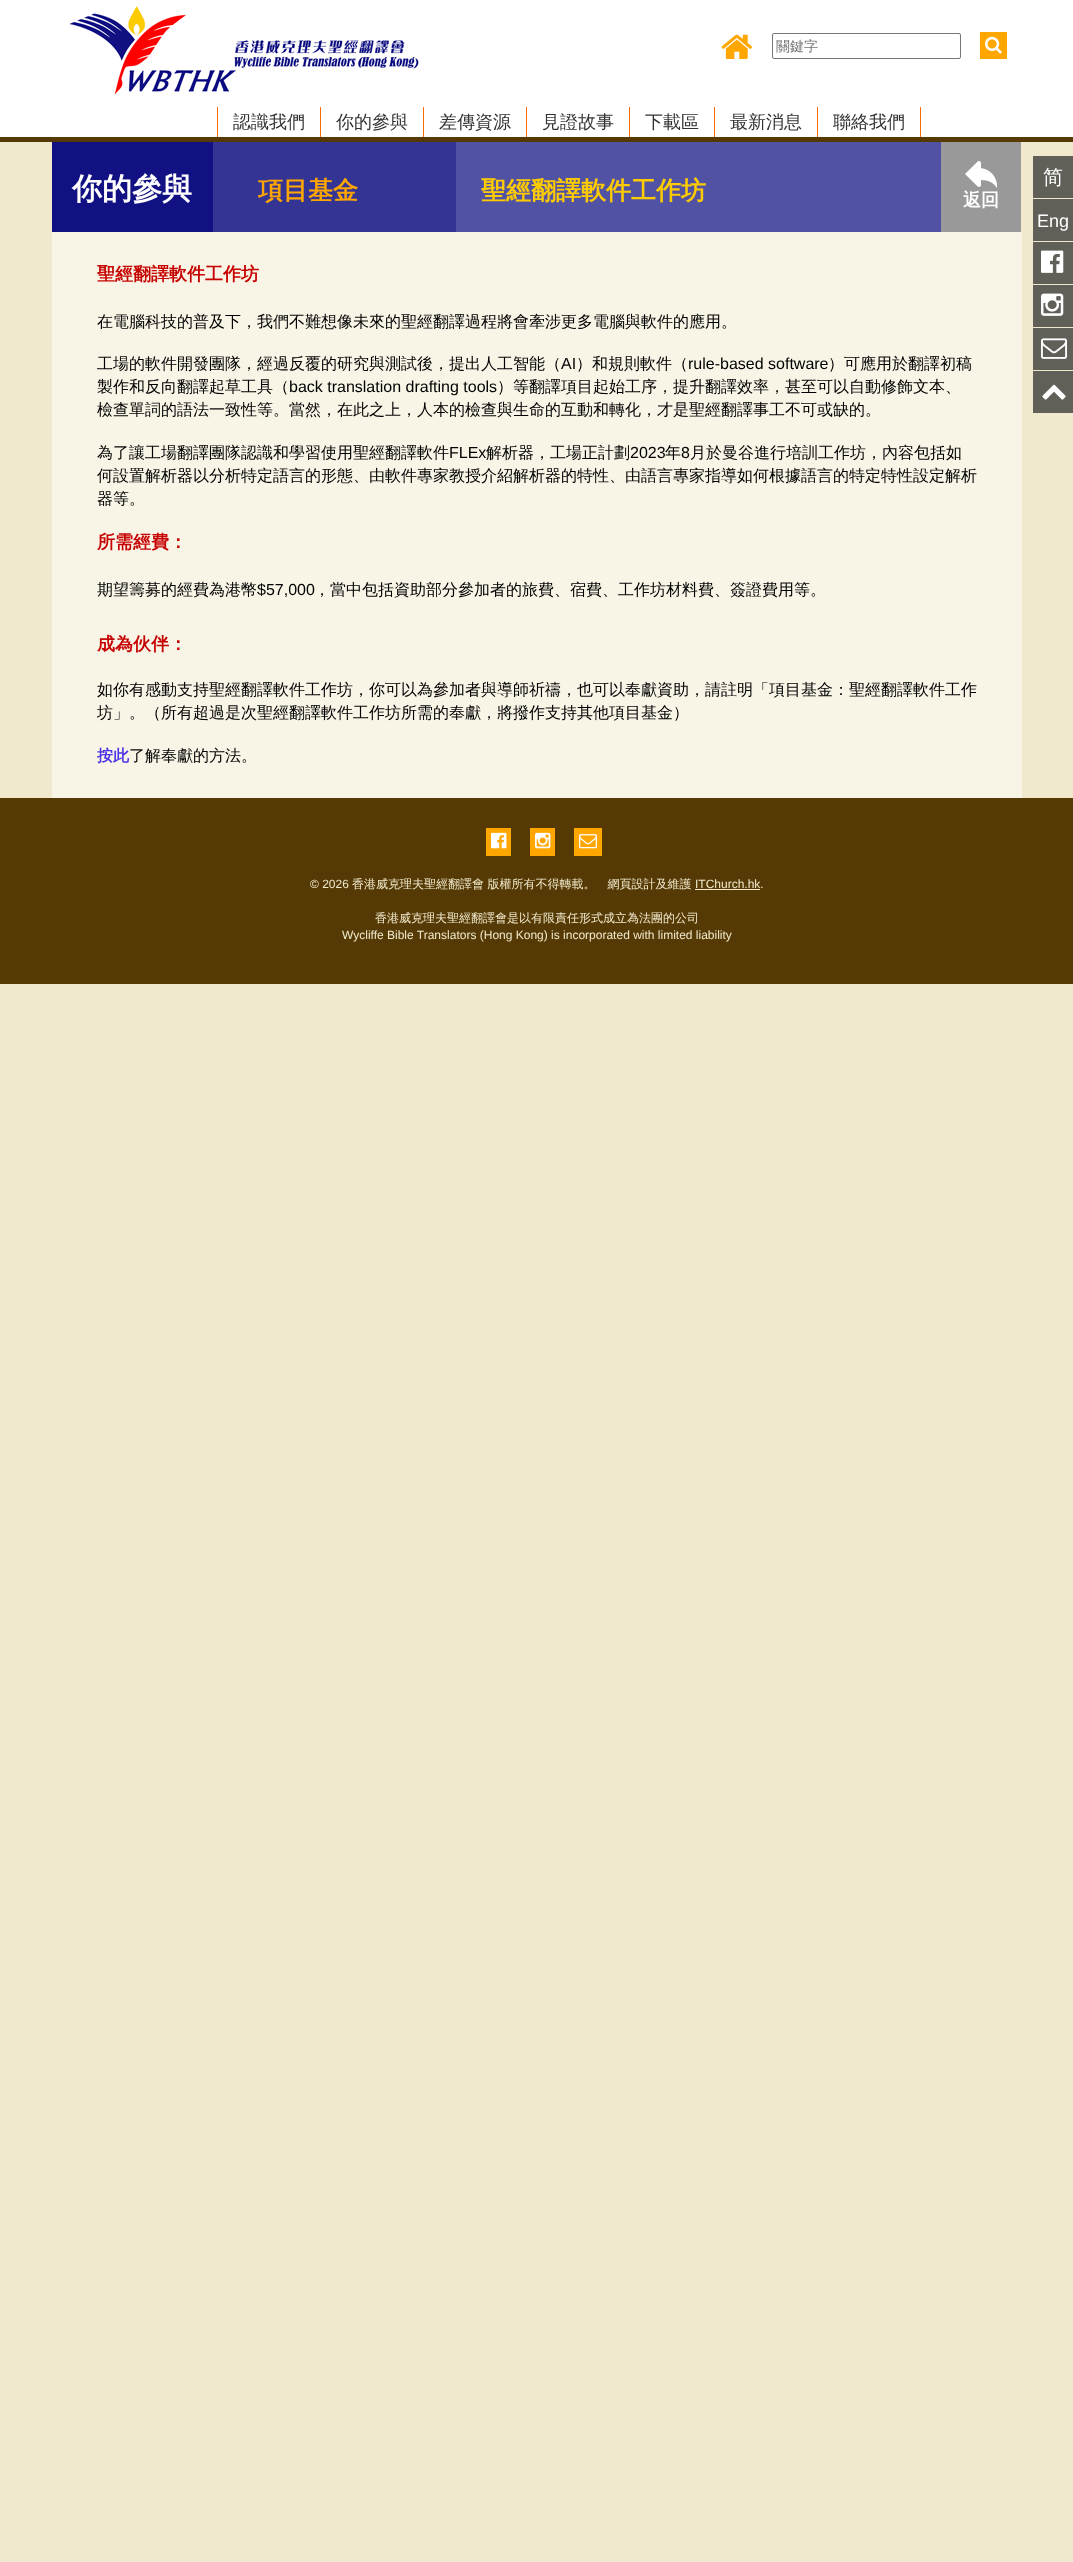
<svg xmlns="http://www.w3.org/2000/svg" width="1073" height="2562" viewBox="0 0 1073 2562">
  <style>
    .t1 { font: 500 14px WenQuanYi Zen Hei; fill: #757575; }
    .t2 { font: 500 18px WenQuanYi Zen Hei; fill: #323232; }
    .t3 { font: bold 30px WenQuanYi Zen Hei; fill: #fff; }
    .t4 { font: bold 25px WenQuanYi Zen Hei; fill: #ffa700; }
    .t5 { font: bold 25px WenQuanYi Zen Hei; fill: #fccb02; }
    .t6 { font: bold 18px WenQuanYi Zen Hei; fill: #fff; }
    .t7 { font: bold 18px WenQuanYi Zen Hei; fill: #c60202; }
    .t8 { font: 500 16px WenQuanYi Zen Hei; fill: #000; }
    .t9 { font: 16px Liberation Sans; fill: #000; }
    .t10 { font: bold 16px WenQuanYi Zen Hei; fill: #4c33e5; }
    .t11 { font: 500 20px WenQuanYi Zen Hei; fill: #fff; }
    .t12 { font: 18px Liberation Sans; fill: #fff; }
    .t13 { font: 12px Liberation Sans; fill: #f0e9cd; }
    .t14 { font: 500 12px WenQuanYi Zen Hei; fill: #f0e9cd; }
  </style>
  <rect width="100%" height="100%" fill="#f0e9cd"/>
  <rect x="0" y="0" width="1073" height="137" fill="#fff"/>
  <rect x="0" y="137" width="1073" height="5" fill="#563a05"/>
  <image x="69" y="6" width="350" height="89" href="images/1.png"/>
  <image x="721" y="34" width="31" height="25" href="images/2.png"/>
  <rect x="772.5" y="33.5" width="188" height="25" rx="1.5" fill="none" stroke="#767676"/>
  <text x="776" y="51" class="t1">關鍵字</text>
  <rect x="980" y="32" width="27" height="27" fill="#ffa700"/>
  <image x="985" y="36" width="17" height="18" href="images/3.png"/>
  <rect x="217" y="107" width="1" height="30" fill="#fe6c00"/>
  <text x="233" y="128" class="t2">認識我們</text>
  <rect x="320" y="107" width="1" height="30" fill="#fe6c00"/>
  <text x="336" y="128" class="t2">你的參與</text>
  <rect x="423" y="107" width="1" height="30" fill="#fe6c00"/>
  <text x="439" y="128" class="t2">差傳資源</text>
  <rect x="526" y="107" width="1" height="30" fill="#fe6c00"/>
  <text x="542" y="128" class="t2">見證故事</text>
  <rect x="629" y="107" width="1" height="30" fill="#fe6c00"/>
  <text x="645" y="128" class="t2">下載區</text>
  <rect x="714" y="107" width="1" height="30" fill="#fe6c00"/>
  <text x="730" y="128" class="t2">最新消息</text>
  <rect x="920" y="107" width="1" height="30" fill="#fe6c00"/>
  <rect x="817" y="107" width="1" height="30" fill="#fe6c00"/>
  <text x="833" y="128" class="t2">聯絡我們</text>
  <rect x="52" y="142" width="161" height="90" fill="#111183"/>
  <text x="72" y="199" class="t3">你的參與</text>
  <rect x="213" y="142" width="243" height="90" fill="#343495"/>
  <text x="258" y="199" class="t4">項目基金</text>
  <rect x="456" y="142" width="485" height="90" fill="#5252a5"/>
  <text x="481" y="199" class="t5">聖經翻譯軟件工作坊</text>
  <rect x="941" y="142" width="80" height="90" fill="#999"/>
  <image x="965" y="161" width="32" height="27" href="images/4.png"/>
  <text x="963" y="206" class="t6">返回</text>
  <rect x="52" y="232" width="970" height="566" fill="#f8f4e6"/>
  <text x="97" y="280" class="t7">聖經翻譯軟件工作坊</text>
  <text x="97" y="327" class="t8">在電腦科技的普及下，我們不難想像未來的聖經翻譯過程將會牽涉更多電腦與軟件的應用。</text>
  <text x="97" y="369" class="t8">工場的軟件開發團隊，經過反覆的研究與測試後，提出人工智能（</text>
  <text x="561" y="369" class="t9">AI</text>
  <text x="576" y="369" class="t8">）和規則軟件（</text>
  <text x="688" y="369" class="t9">rule-based software</text>
  <text x="828" y="369" class="t8">）可應用於翻譯初稿</text>
  <text x="97" y="392" class="t8">製作和反向翻譯起草工具（</text>
  <text x="289" y="392" class="t9">back translation drafting tools</text>
  <text x="497" y="392" class="t8">）等翻譯項目起始工序，提升翻譯效率，甚至可以自動修飾文本、</text>
  <text x="97" y="415" class="t8">檢查單詞的語法一致性等。當然，在此之上，人本的檢查與生命的互動和轉化，才是聖經翻譯事工不可或缺的。</text>
  <text x="97" y="458" class="t8">為了讓工場翻譯團隊認識和學習使用聖經翻譯軟件</text>
  <text x="449" y="458" class="t9">FLEx</text>
  <text x="486" y="458" class="t8">解析器，工場正計劃</text>
  <text x="630" y="458" class="t9">2023</text>
  <text x="665" y="458" class="t8">年</text>
  <text x="681" y="458" class="t9">8</text>
  <text x="690" y="458" class="t8">月於曼谷進行培訓工作坊，內容包括如</text>
  <text x="97" y="481" class="t8">何設置解析器以分析特定語言的形態、由軟件專家教授介紹解析器的特性、由語言專家指導如何根據語言的特定特性設定解析</text>
  <text x="97" y="504" class="t8">器等。</text>
  <text x="97" y="548" class="t7">所需經費：</text>
  <text x="97" y="595" class="t8">期望籌募的經費為港幣</text>
  <text x="257" y="595" class="t9">$57,000</text>
  <text x="314" y="595" class="t8">，當中包括資助部分參加者的旅費、宿費、工作坊材料費、簽證費用等。</text>
  <text x="97" y="650" class="t7">成為伙伴：</text>
  <text x="97" y="695" class="t8">如你有感動支持聖經翻譯軟件工作坊，你可以為參加者與導師祈禱，也可以奉獻資助，請註明「項目基金：聖經翻譯軟件工作</text>
  <text x="97" y="718" class="t8">坊」。（所有超過是次聖經翻譯軟件工作坊所需的奉獻，將撥作支持其他項目基金）</text>
  <text x="97" y="761" class="t10">按此</text>
  <text x="129" y="761" class="t8">了解奉獻的方法。</text>
  <rect x="1033" y="156" width="40" height="42" fill="#605f58"/>
  <text x="1043" y="184" class="t11">简</text>
  <rect x="1033" y="199" width="40" height="42" fill="#605f58"/>
  <text x="1037" y="227" class="t12">Eng</text>
  <rect x="1033" y="242" width="40" height="42" fill="#605f58"/>
  <image x="1041" y="250" width="23" height="23" href="images/5.png"/>
  <rect x="1033" y="285" width="40" height="42" fill="#605f58"/>
  <image x="1041" y="293" width="23" height="23" href="images/6.png"/>
  <rect x="1033" y="328" width="40" height="42" fill="#605f58"/>
  <image x="1041" y="338" width="26" height="21" href="images/7.png"/>
  <rect x="1033" y="371" width="40" height="42" fill="#605f58"/>
  <image x="1042" y="384" width="24" height="16" href="images/8.png"/>
  <rect x="0" y="798" width="1073" height="186" fill="#563a05"/>
  <rect x="486" y="828" width="25" height="28" fill="#ffa700"/>
  <image x="491" y="832" width="16" height="17" href="images/9.png"/>
  <rect x="530" y="828" width="25" height="28" fill="#ffa700"/>
  <image x="535" y="832" width="16" height="17" href="images/10.png"/>
  <rect x="574" y="828" width="28" height="28" fill="#ffa700"/>
  <image x="579" y="834" width="18" height="15" href="images/11.png"/>
  <text x="310" y="888" class="t13">© 2026</text>
  <text x="352" y="888" class="t14">香港威克理夫聖經翻譯會 版權所有不得轉載。　網頁設計及維護</text>
  <text x="695" y="888" class="t13">ITChurch.hk.</text>
  <rect x="695" y="889" width="65" height="1" fill="#f0e9cd"/>
  <text x="375" y="922" class="t14">香港威克理夫聖經翻譯會是以有限責任形式成立為法團的公司</text>
  <text x="342" y="939" class="t13">Wycliffe Bible Translators (Hong Kong) is incorporated with limited liability</text>
</svg>
